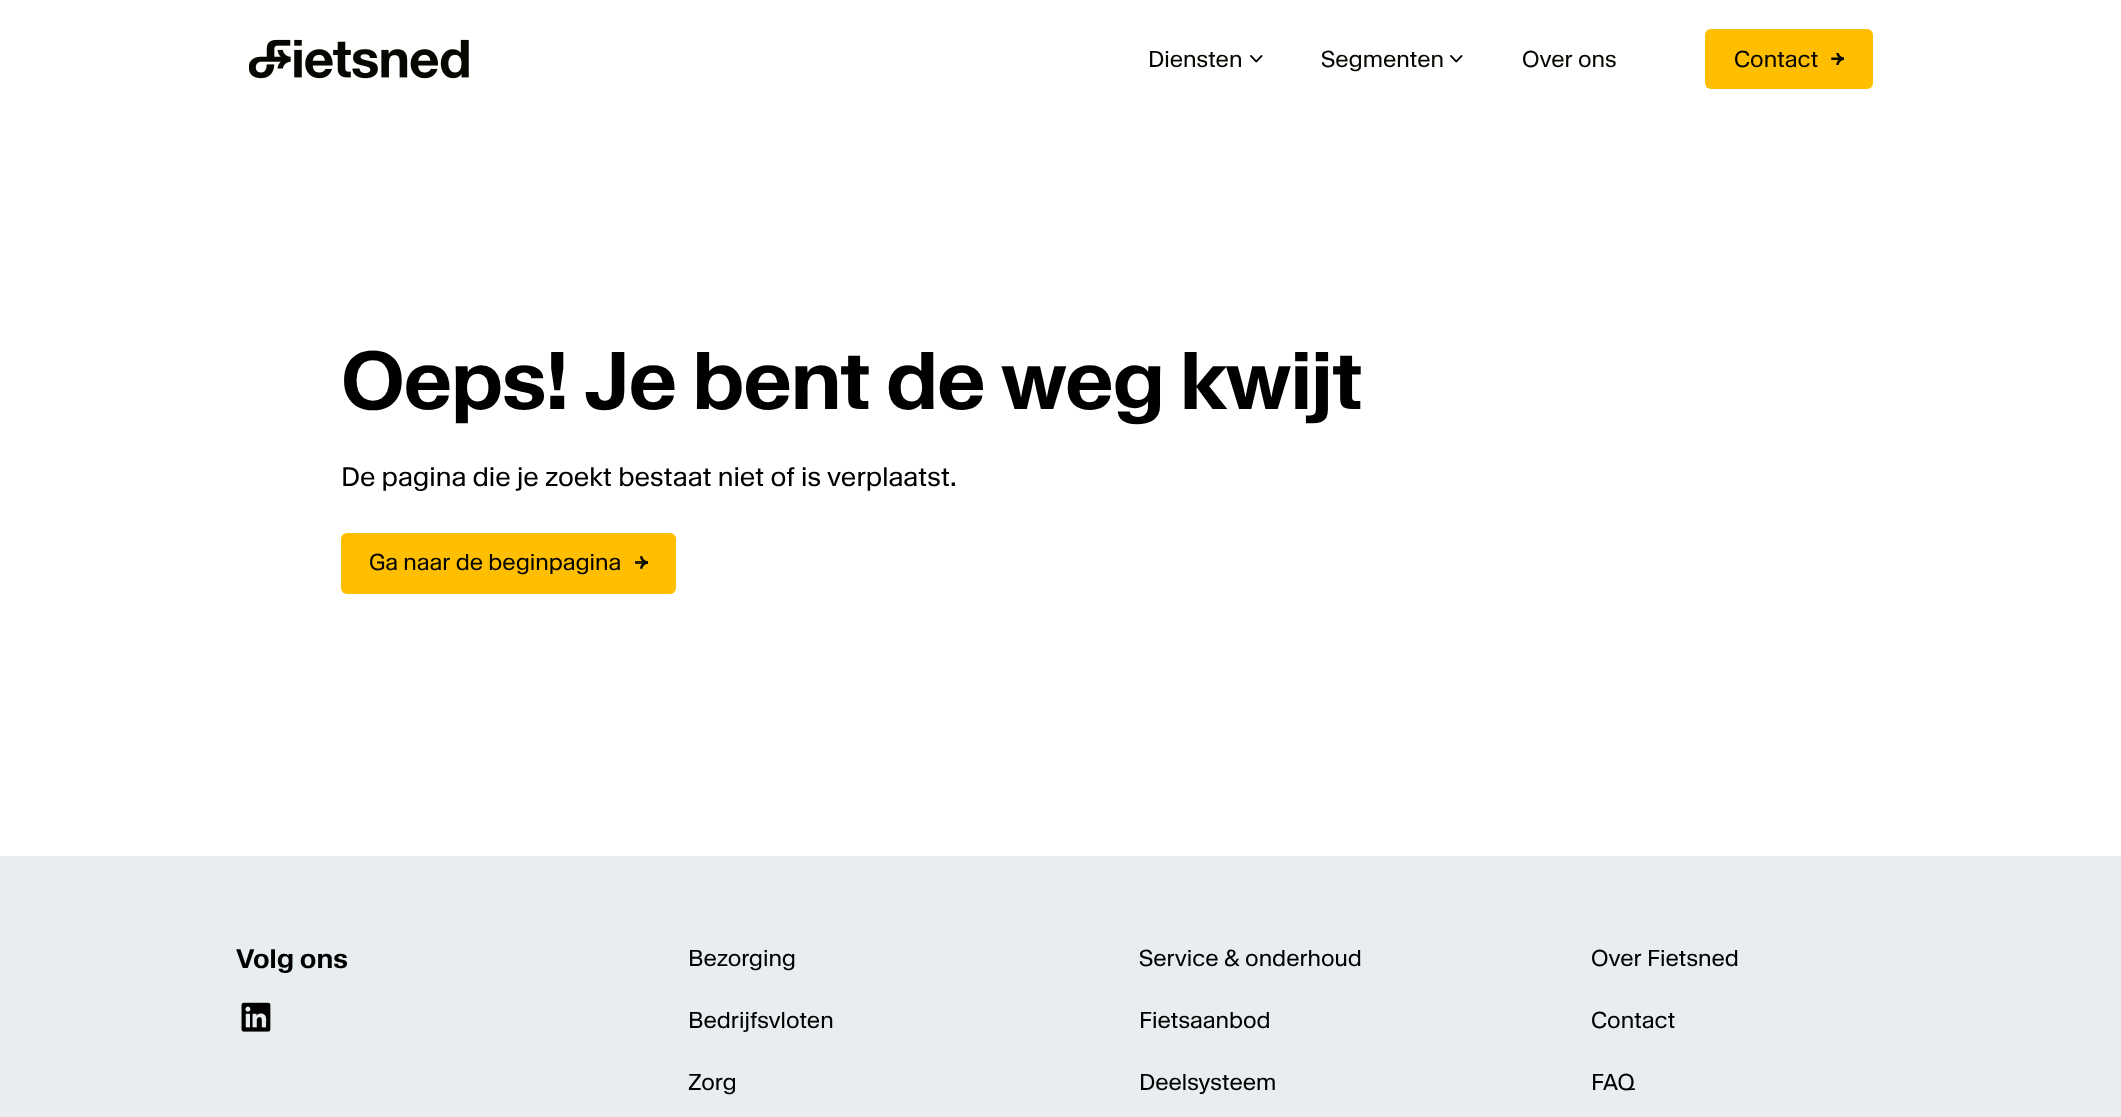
<svg xmlns="http://www.w3.org/2000/svg" width="2121" height="1117" viewBox="0 0 2121 1117">
  <style>
    .t1 { font: 22.5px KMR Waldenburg; fill: #080600; }
    .t2 { font: bold 80px KMR Waldenburg; letter-spacing: -1.6px; fill: #000; }
    .t3 { font: 26.25px KMR Waldenburg; fill: #000; }
    .t4 { font: bold 26.25px KMR Waldenburg; fill: #000; }
    .t5 { font: 22.5px KMR Waldenburg; fill: #000; }
  </style>
  <rect width="100%" height="100%" fill="#fff"/>
  <image x="249" y="39" width="220" height="40" href="images/1.png"/>
  <text x="1148" y="67" class="t1">Diensten</text>
  <image x="1250" y="55" width="13" height="8" href="images/2.png"/>
  <text x="1321" y="67" class="t1">Segmenten</text>
  <image x="1450" y="55" width="13" height="8" href="images/2.png"/>
  <text x="1522" y="67" class="t1">Over ons</text>
  <rect x="1705" y="29" width="168" height="60" rx="6" fill="#ffbf00"/>
  <text x="1734" y="67" class="t1">Contact</text>
  <image x="1831" y="53" width="13" height="12" href="images/3.png"/>
  <text x="341" y="409" class="t2">Oeps! Je bent de weg kwijt</text>
  <text x="341" y="486" class="t3">De pagina die je zoekt bestaat niet of is verplaatst.</text>
  <rect x="341" y="533" width="335" height="61" rx="6" fill="#ffbf00"/>
  <text x="369" y="570" class="t1">Ga naar de beginpagina</text>
  <image x="635" y="556" width="13" height="13" href="images/4.png"/>
  <rect x="0" y="856" width="2121" height="261" fill="#e8edef"/>
  <text x="236" y="968" class="t4">Volg ons</text>
  <image x="241" y="1002" width="30" height="30" href="images/5.png"/>
  <text x="688" y="966" class="t5">Bezorging</text>
  <text x="688" y="1028" class="t5">Bedrijfsvloten</text>
  <text x="688" y="1090" class="t5">Zorg</text>
  <text x="1139" y="966" class="t5">Service &amp; onderhoud</text>
  <text x="1139" y="1028" class="t5">Fietsaanbod</text>
  <text x="1139" y="1090" class="t5">Deelsysteem</text>
  <text x="1591" y="966" class="t5">Over Fietsned</text>
  <text x="1591" y="1028" class="t5">Contact</text>
  <text x="1591" y="1090" class="t5">FAQ</text>
</svg>
